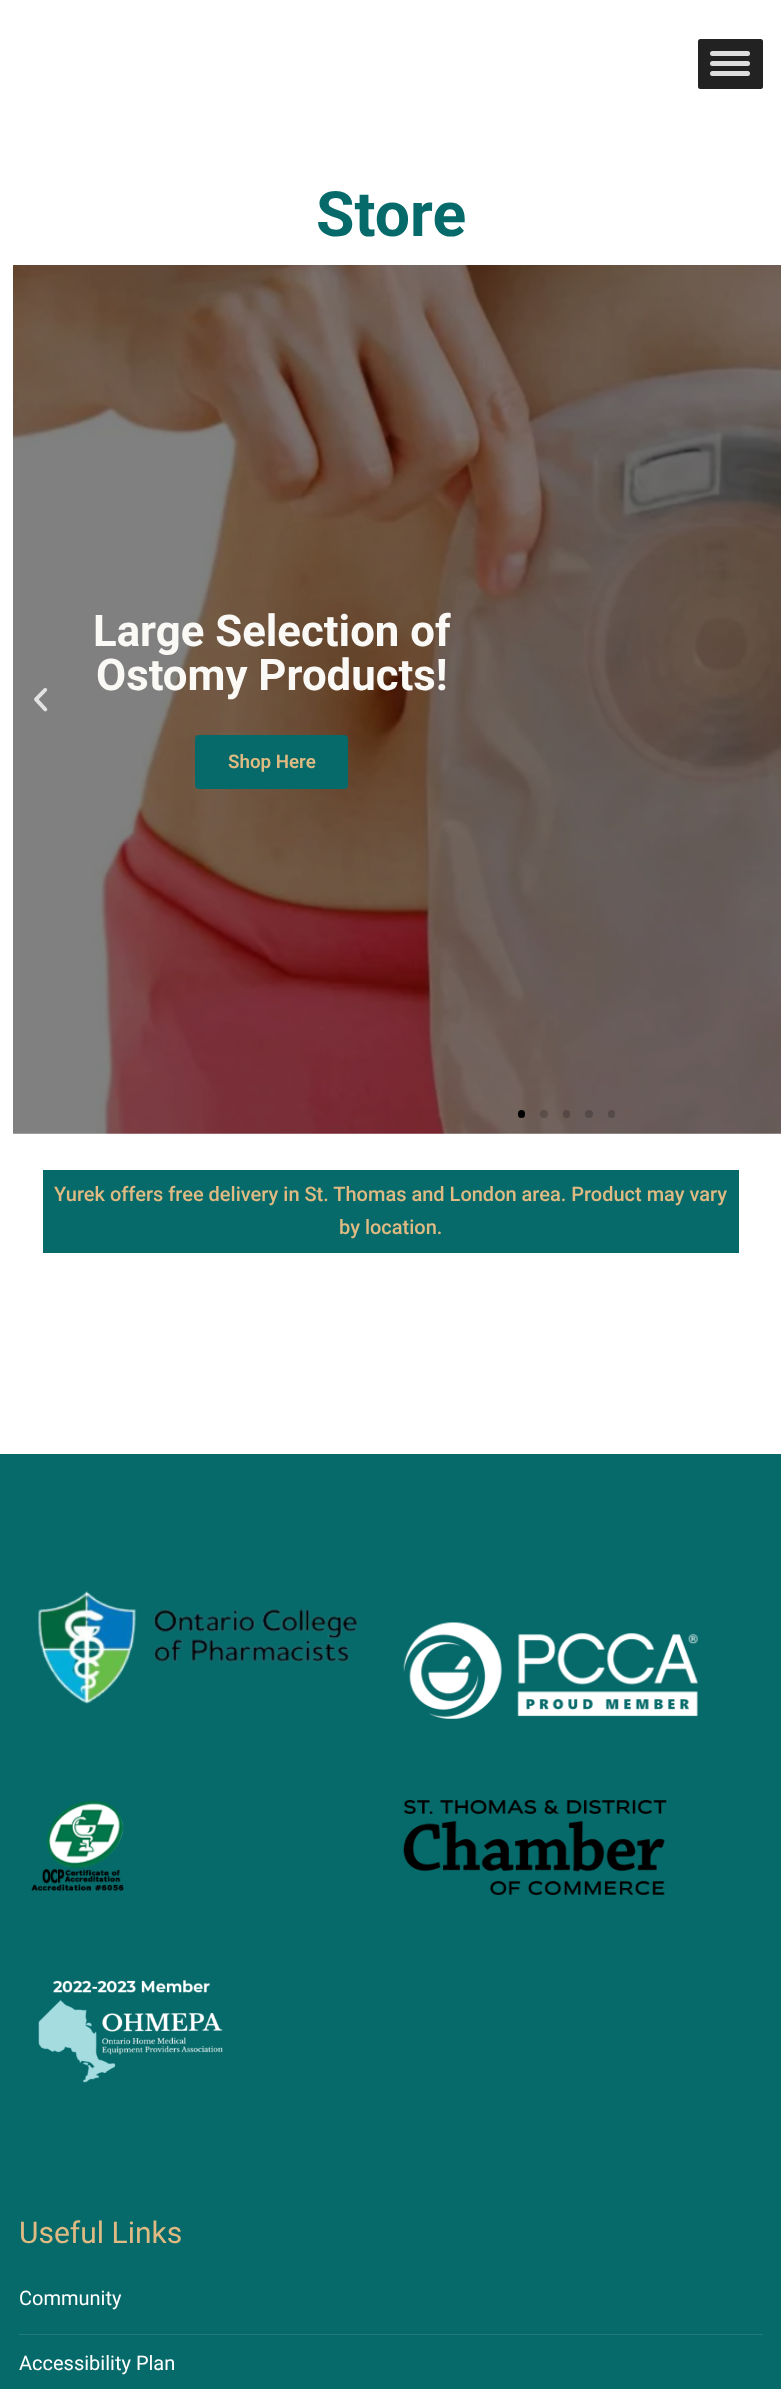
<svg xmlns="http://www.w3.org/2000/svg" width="781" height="2389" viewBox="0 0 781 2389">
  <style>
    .t1 { font: bold 62.5px Roboto; fill: #076a6a; }
    .t2 { font: bold 43.75px Roboto; fill: #faf9f6; }
    .t3 { font: 600 18.75px Roboto; fill: #dfba82; }
    .t4 { font: 500 20px Roboto; fill: #dfba82; }
    .t5 { font: 30px Roboto; fill: #dfba82; }
    .t6 { font: 20px Roboto; fill: #fff; }
  </style>
  <rect width="100%" height="100%" fill="#fff"/>
  <rect x="698" y="39" width="65" height="50" rx="2.5" fill="#222"/>
  <rect x="710" y="51" width="40" height="5" rx="2.5" fill="#ddd"/>
  <rect x="710" y="61" width="40" height="5" rx="2.5" fill="#ddd"/>
  <rect x="710" y="71" width="40" height="5" rx="2.5" fill="#ddd"/>
  <text x="316" y="236" class="t1">Store</text>
  <image x="13" y="265" width="768" height="869" href="images/2.png"/>
  <image x="34" y="688" width="14" height="24" href="images/1.png"/>
  <text x="93" y="646" class="t2">Large Selection of</text>
  <text x="96" y="690" class="t2">Ostomy Products!</text>
  <rect x="196.5" y="736.5" width="150" height="51" rx="2.5" fill="#076a6a" stroke="#076a6a" stroke-width="3"/>
  <text x="228" y="768" class="t3">Shop Here</text>
  <rect x="518" y="1110" width="7" height="8" rx="3.5" fill="#000"/>
  <circle cx="544" cy="1114" r="4" fill="#00000033"/>
  <rect x="563" y="1110" width="7" height="8" rx="3.5" fill="#554844"/>
  <circle cx="589" cy="1114" r="4" fill="#554a48"/>
  <rect x="608" y="1110" width="7" height="8" rx="3.5" fill="#554a48"/>
  <rect x="43" y="1170" width="696" height="83" fill="#076a6a"/>
  <text x="54" y="1201" class="t4">Yurek offers free delivery in St. Thomas and London area. Product may vary</text>
  <text x="339" y="1234" class="t4">by location.</text>
  <rect x="0" y="1454" width="781" height="935" fill="#076a6a"/>
  <image x="38" y="1591" width="320" height="113" href="images/3.png"/>
  <image x="403" y="1622" width="295" height="97" href="images/4.png"/>
  <image x="31" y="1801" width="93" height="90" href="images/5.png"/>
  <image x="403" y="1800" width="264" height="95" href="images/6.png"/>
  <image x="38" y="1980" width="185" height="103" href="images/7.png"/>
  <text x="19" y="2243" class="t5">Useful Links</text>
  <text x="19" y="2305" class="t6">Community</text>
  <rect x="19" y="2334" width="744" height="1" fill="#237979"/>
  <text x="19" y="2370" class="t6">Accessibility Plan</text>
</svg>
